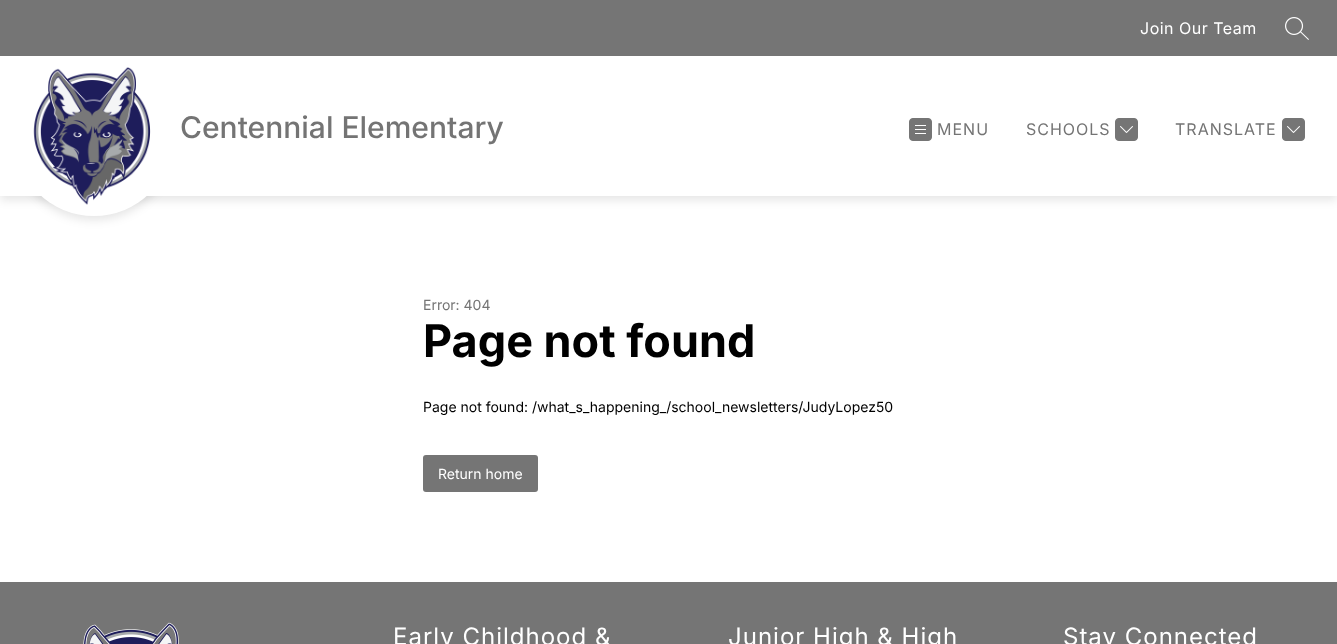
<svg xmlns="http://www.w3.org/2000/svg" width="1337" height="644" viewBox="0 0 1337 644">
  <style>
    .t1 { font: 16px Inter; letter-spacing: 0.5px; fill: #fff; }
    .t2 { font: 500 30px Inter; fill: #747474; }
    .t3 { font: 16px Inter; letter-spacing: 1px; fill: #747474; }
    .t4 { font: 14px Inter; fill: #747474; }
    .t5 { font: bold 45px Inter; fill: #000; }
    .t6 { font: 14px Inter; fill: #000; }
    .t7 { font: 14px Inter; fill: #fff; }
    .t8 { font: 24px Inter; letter-spacing: 1px; fill: #fff; }
  </style>
  <rect width="100%" height="100%" fill="#fff"/>
  <rect x="0" y="4" width="1337" height="196" fill="#0000001a" filter="blur(5px)"/>
  <rect x="14" y="60" width="160" height="160" rx="80" fill="#0000001a" filter="blur(5px)"/>
  <rect x="0" y="0" width="1337" height="56" fill="#757575"/>
  <text x="1140" y="34" class="t1">Join Our Team</text>
  <image x="1285" y="17" width="24" height="23" href="images/1.png"/>
  <circle cx="94" cy="136" r="80" fill="#fff"/>
  <rect x="0" y="56" width="1337" height="140" fill="#fff"/>
  <image x="33" y="67" width="118" height="138" href="images/2.png"/>
  <text x="180" y="138" class="t2">Centennial Elementary</text>
  <image x="909" y="118" width="23" height="23" href="images/3.png"/>
  <text x="937" y="135" class="t3">MENU</text>
  <text x="1026" y="135" class="t3">SCHOOLS</text>
  <image x="1115" y="118" width="23" height="23" href="images/4.png"/>
  <text x="1175" y="135" class="t3">TRANSLATE</text>
  <image x="1282" y="118" width="23" height="23" href="images/4.png"/>
  <text x="423" y="310" class="t4">Error: 404</text>
  <text x="423" y="357" class="t5">Page not found</text>
  <text x="423" y="412" class="t6">Page not found: /what_s_happening_/school_newsletters/JudyLopez50</text>
  <rect x="423" y="455" width="115" height="37" rx="3" fill="#757575"/>
  <text x="438" y="479" class="t7">Return home</text>
  <rect x="0" y="582" width="1337" height="62" fill="#757575"/>
  <image x="83" y="622" width="96" height="22" href="images/5.png"/>
  <text x="393" y="645" class="t8">Early Childhood &amp;</text>
  <text x="728" y="645" class="t8">Junior High &amp; High</text>
  <text x="1063" y="645" class="t8">Stay Connected</text>
</svg>
